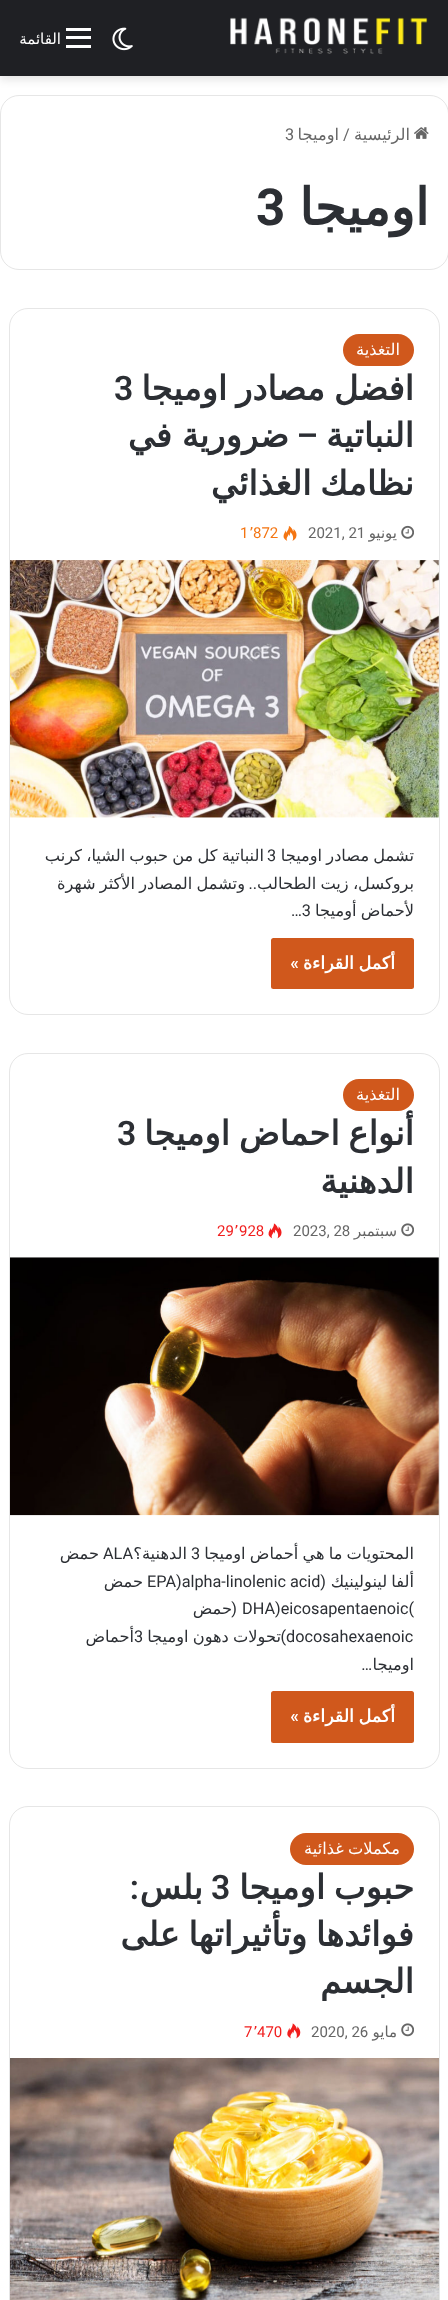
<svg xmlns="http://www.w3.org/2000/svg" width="448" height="2300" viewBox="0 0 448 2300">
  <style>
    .t1 { font: 15px DejaVu Sans; direction: rtl; fill: #fff; }
    .t2 { font: 16.25px DejaVu Sans; direction: rtl; fill: #666; }
    .t3 { font: 16.25px Roboto; fill: #666; }
    .t4 { font: bold 51px DejaVu Sans; direction: rtl; fill: #2c2f34; }
    .t5 { font: bold 51px Roboto; fill: #2c2f34; }
    .t6 { font: 16.25px DejaVu Sans; direction: rtl; fill: #fff; }
    .t7 { font: bold 33.75px DejaVu Sans; direction: rtl; fill: #2c2f34; }
    .t8 { font: 600 33.75px Roboto; fill: #2c2f34; }
    .t9 { font: 600 33.75px Roboto; direction: rtl; fill: #2c2f34; }
    .t10 { font: 15px DejaVu Sans; direction: rtl; fill: #666; }
    .t11 { font: 15px Roboto; fill: #666; }
    .t12 { font: 15px Roboto; fill: #f47512; }
    .t13 { font: 15px DejaVu Sans; fill: #f47512; }
    .t14 { font: 16.25px DejaVu Sans; direction: rtl; fill: #2c2f34; }
    .t15 { font: 16.25px Roboto; fill: #2c2f34; }
    .t16 { font: 16.25px Roboto; direction: rtl; fill: #2c2f34; }
    .t17 { font: bold 17.5px DejaVu Sans; direction: rtl; fill: #fff; }
    .t18 { font: 600 17.5px Roboto; direction: rtl; fill: #fff; }
    .t19 { font: 15px Roboto; fill: #f11e1e; }
    .t20 { font: 15px DejaVu Sans; fill: #f11e1e; }
  </style>
  <rect width="100%" height="100%" fill="#fff"/>
  <rect x="0" y="4" width="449" height="76" fill="#0000001a" filter="blur(4.5px)"/>
  <rect x="0" y="0" width="448" height="76" fill="#1f2024"/>
  <image x="230" y="17" width="198" height="37" href="images/1.png"/>
  <image x="112" y="27" width="21" height="24" href="images/2.png"/>
  <rect x="66" y="36" width="25" height="3" fill="#fff"/>
  <rect x="66" y="28" width="25" height="3" fill="#fff"/>
  <rect x="66" y="45" width="25" height="3" fill="#fff"/>
  <text x="61" y="44" class="t1">القائمة</text>
  <rect x="0.5" y="95.5" width="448" height="174" rx="18.5" fill="none" stroke="#e6e6e6"/>
  <image x="414" y="127" width="15" height="12" href="images/3.png"/>
  <text x="410" y="140" class="t2">الرئيسية</text>
  <text x="343" y="140" class="t3">/</text>
  <text x="339" y="140" class="t2">اوميجا</text>
  <text x="285" y="140" class="t3">3</text>
  <text x="429" y="225" class="t4">اوميجا</text>
  <text x="256" y="225" class="t5">3</text>
  <rect x="9.5" y="308.5" width="430" height="706" rx="18.5" fill="none" stroke="#e6e6e6"/>
  <rect x="343" y="334" width="71" height="32" rx="16" fill="#d0581c"/>
  <text x="400" y="355" class="t6">التغذية</text>
  <text x="414" y="400" word-spacing="-2" class="t7">افضل مصادر اوميجا</text>
  <text x="114" y="400" class="t8">3</text>
  <text x="414" y="447" class="t7">النباتية</text>
  <text x="318" y="447" class="t9">–</text>
  <text x="289" y="447" word-spacing="-1" class="t7">ضرورية في</text>
  <text x="414" y="495" word-spacing="-2" class="t7">نظامك الغذائي</text>
  <image x="401" y="525" width="13" height="14" href="images/4.png"/>
  <text x="397" y="538" class="t10">يونيو</text>
  <text x="308" y="538" class="t11">2021, 21</text>
  <image x="283" y="526" width="14" height="15" href="images/5.png"/>
  <text x="253" y="538" class="t12">872</text>
  <text x="249" y="538" class="t13">٬</text>
  <text x="240" y="538" class="t12">1</text>
  <image x="10" y="560" width="429" height="258" href="images/6.png"/>
  <text x="414" y="861" word-spacing="-1" class="t14">تشمل مصادر اوميجا</text>
  <text x="267" y="861" class="t15">3</text>
  <text x="264" y="861" word-spacing="-1" class="t14">النباتية كل من حبوب الشيا، كرنب</text>
  <text x="414" y="889" word-spacing="-1" class="t14">بروكسل، زيت الطحالب</text>
  <text x="257" y="889" class="t16">..</text>
  <text x="245" y="889" word-spacing="-1" class="t14">وتشمل المصادر الأكثر شهرة</text>
  <text x="414" y="916" word-spacing="-1" class="t14">لأحماض أوميجا</text>
  <text x="291" y="916" class="t15">…3</text>
  <rect x="271" y="938" width="143" height="51" rx="2.5" fill="#d0581c"/>
  <text x="395" y="969" word-spacing="-1" class="t17">أكمل القراءة</text>
  <text x="299" y="969" class="t18">»</text>
  <rect x="9.5" y="1053.5" width="430" height="715" rx="18.5" fill="none" stroke="#e6e6e6"/>
  <rect x="343" y="1079" width="71" height="32" rx="16" fill="#d0581c"/>
  <text x="400" y="1100" class="t6">التغذية</text>
  <text x="414" y="1145" word-spacing="-2" class="t7">أنواع احماض اوميجا</text>
  <text x="117" y="1145" class="t8">3</text>
  <text x="414" y="1193" class="t7">الدهنية</text>
  <image x="401" y="1223" width="13" height="14" href="images/7.png"/>
  <text x="397" y="1236" class="t10">سبتمبر</text>
  <text x="293" y="1236" class="t11">2023, 28</text>
  <image x="268" y="1223" width="14" height="16" href="images/8.png"/>
  <text x="239" y="1236" class="t19">928</text>
  <text x="234" y="1236" class="t20">٬</text>
  <text x="217" y="1236" class="t19">29</text>
  <image x="10" y="1257" width="429" height="259" href="images/9.png"/>
  <text x="414" y="1559" word-spacing="-1" class="t14">المحتويات ما هي أحماض اوميجا</text>
  <text x="191" y="1559" class="t15">3</text>
  <text x="187" y="1559" class="t14">الدهنية؟</text>
  <text x="103" y="1559" class="t15">ALA</text>
  <text x="99" y="1559" class="t14">حمض</text>
  <text x="414" y="1587" word-spacing="-1" class="t14">ألفا لينولينيك</text>
  <text x="326" y="1587" class="t16">(</text>
  <text x="147" y="1587" class="t15">EPA)alpha-linolenic acid</text>
  <text x="143" y="1587" class="t14">حمض</text>
  <text x="242" y="1614" class="t15">DHA)eicosapentaenoic(</text>
  <text x="237" y="1614" class="t16">(</text>
  <text x="232" y="1614" class="t14">حمض</text>
  <text x="286" y="1642" class="t15">docosahexaenoic</text>
  <text x="281" y="1642" word-spacing="-1" class="t14">تحولات دهون اوميجا</text>
  <text x="286" y="1642" class="t16">)</text>
  <text x="134" y="1642" class="t15">3</text>
  <text x="134" y="1642" class="t14">أحماض</text>
  <text x="414" y="1670" class="t14">اوميجا</text>
  <text x="372" y="1670" class="t16">…</text>
  <rect x="271" y="1691" width="143" height="52" rx="2.5" fill="#d0581c"/>
  <text x="395" y="1722" word-spacing="-1" class="t17">أكمل القراءة</text>
  <text x="299" y="1722" class="t18">»</text>
  <rect x="9.5" y="1806.5" width="430" height="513" rx="18.5" fill="none" stroke="#e6e6e6"/>
  <rect x="290" y="1833" width="124" height="32" rx="16" fill="#d0581c"/>
  <text x="400" y="1854" word-spacing="-1" class="t6">مكملات غذائية</text>
  <text x="414" y="1899" word-spacing="-2" class="t7">حبوب اوميجا</text>
  <text x="211" y="1899" class="t8">3</text>
  <text x="203" y="1899" class="t7">بلس</text>
  <text x="139" y="1899" class="t9">:</text>
  <text x="414" y="1946" word-spacing="-2" class="t7">فوائدها وتأثيراتها على</text>
  <text x="414" y="1993" class="t7">الجسم</text>
  <image x="401" y="2023" width="13" height="14" href="images/7.png"/>
  <text x="397" y="2037" class="t10">مايو</text>
  <text x="311" y="2037" class="t11">2020, 26</text>
  <image x="287" y="2023" width="14" height="16" href="images/10.png"/>
  <text x="257" y="2037" class="t19">470</text>
  <text x="253" y="2037" class="t20">٬</text>
  <text x="244" y="2037" class="t19">7</text>
  <image x="10" y="2058" width="429" height="242" href="images/11.png"/>
</svg>
